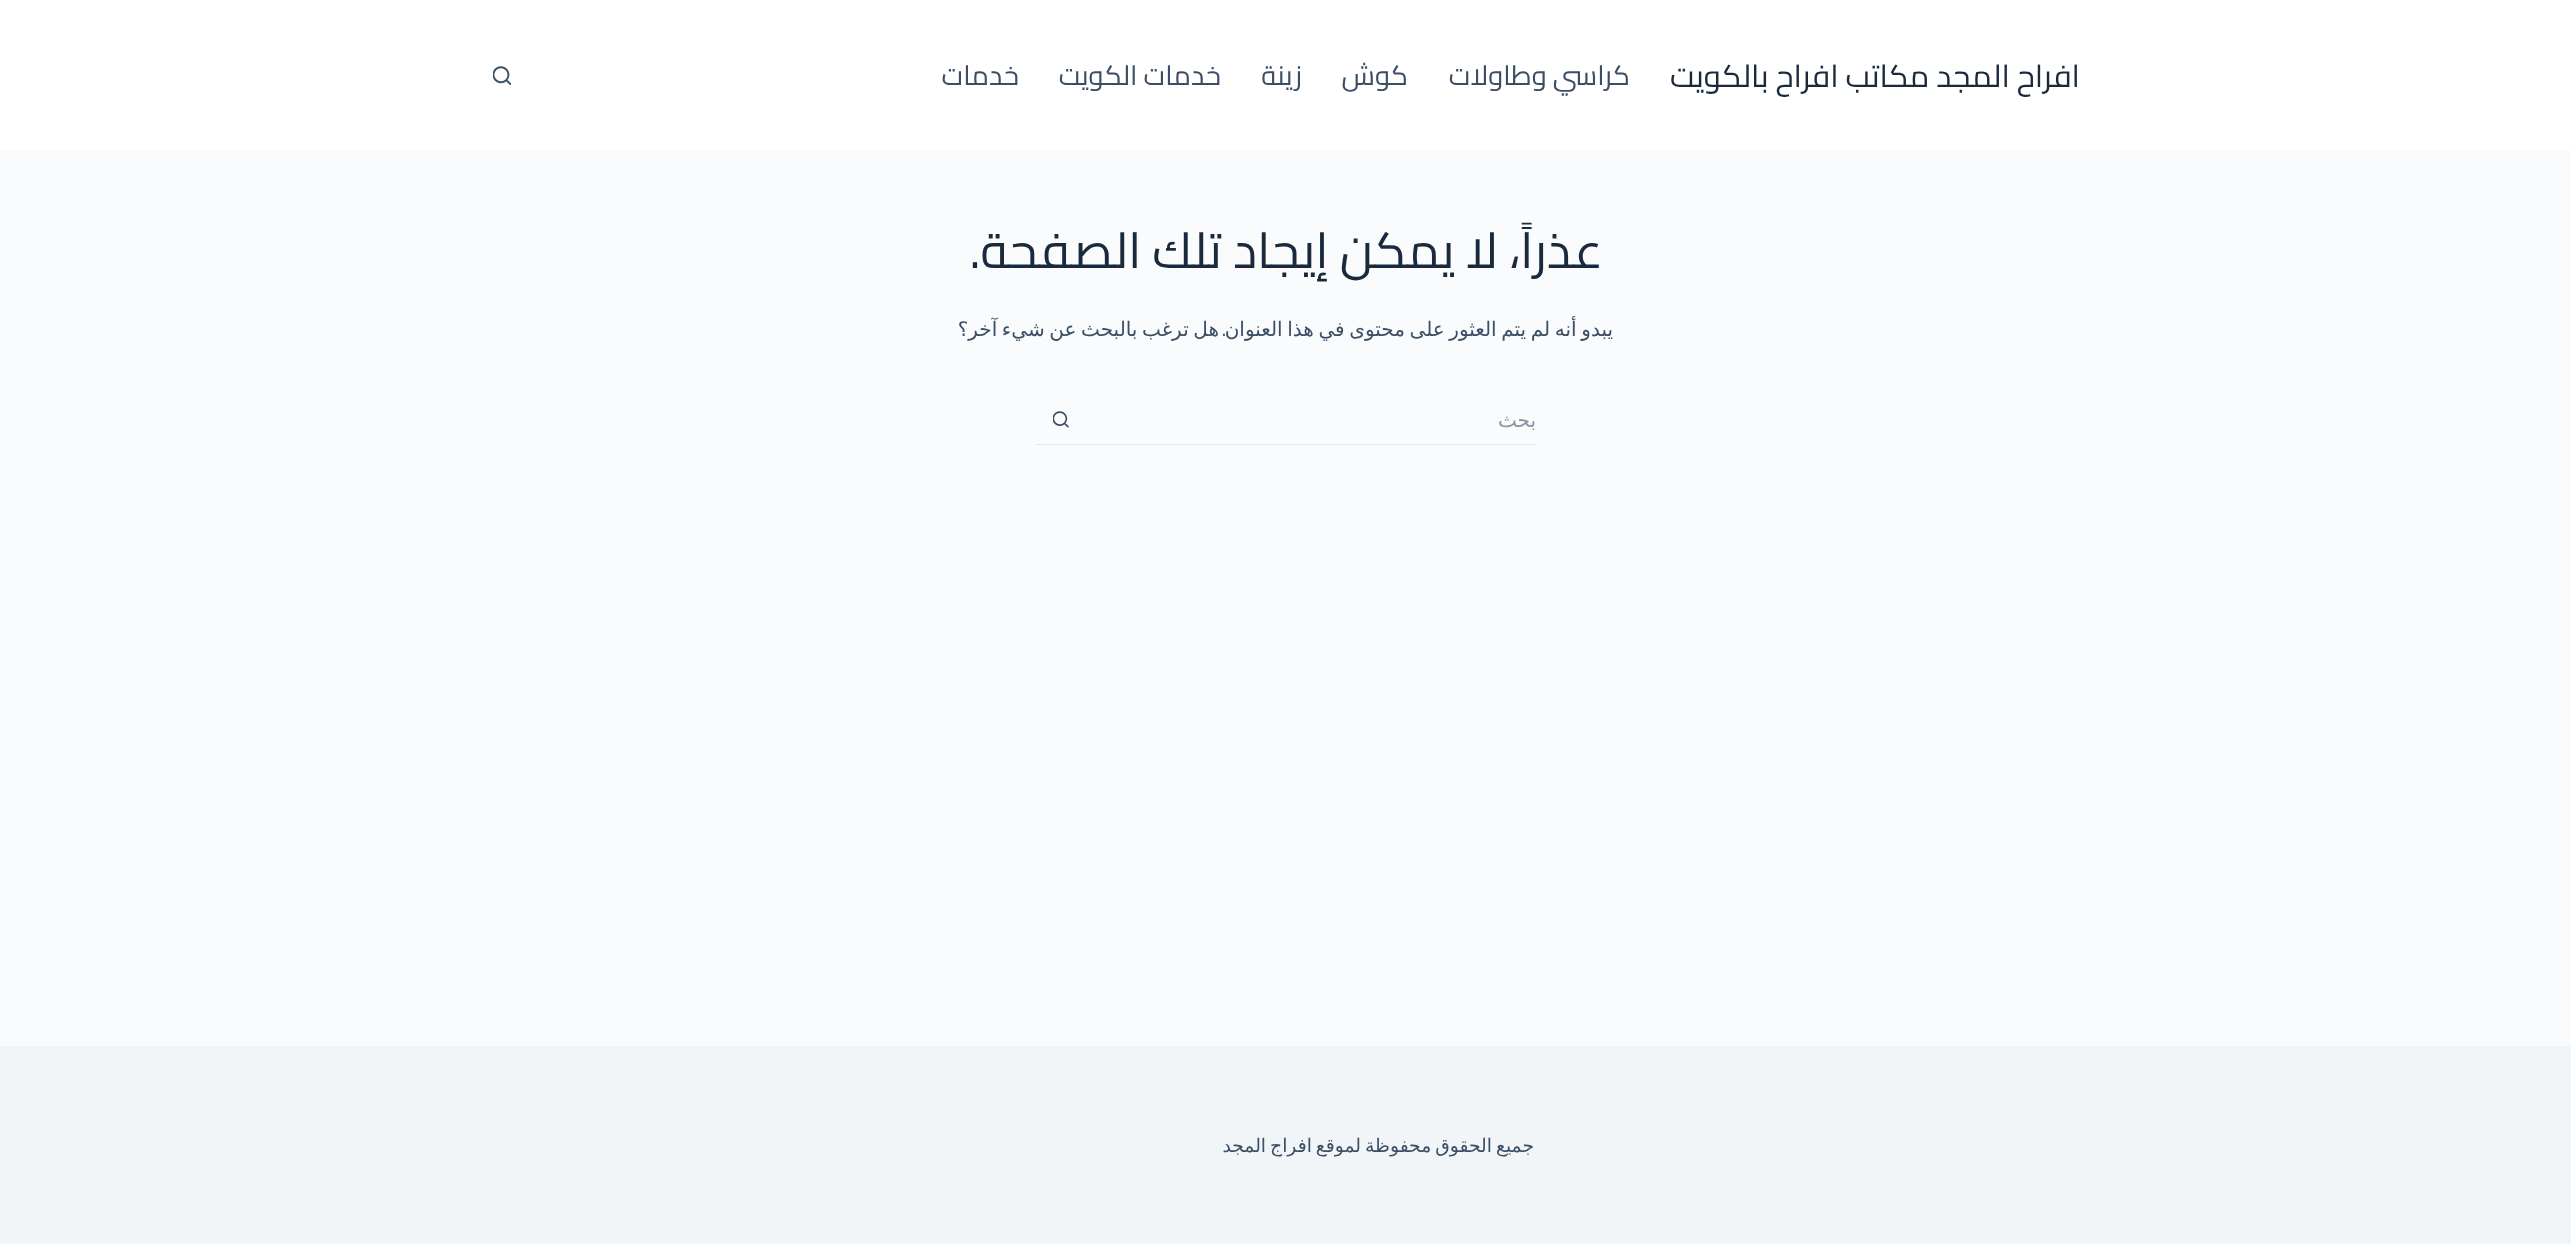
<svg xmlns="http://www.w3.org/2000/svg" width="2571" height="1244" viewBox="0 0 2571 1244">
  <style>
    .t1 { font: 31.25px Cairo; direction: rtl; fill: #192a3d; }
    .t2 { font: 27.5px Cairo; direction: rtl; fill: #3a4f66; }
    .t3 { font: 50px Cairo; direction: rtl; fill: #192a3d; }
    .t4 { font: 20px DejaVu Sans; direction: rtl; fill: #3a4f66; }
    .t5 { font: 20px 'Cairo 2'; direction: rtl; fill: #3a4f66; }
    .t6 { font: 20px DejaVu Sans; direction: rtl; fill: #8794a2; }
    .t7 { font: 18.75px DejaVu Sans; direction: rtl; fill: #3a4f66; }
  </style>
  <rect width="100%" height="100%" fill="#fafbfc"/>
  <rect x="0" y="0" width="2571" height="150" fill="#fff"/>
  <text x="2080" y="87" class="t1">افراح المجد مكاتب افراح بالكويت</text>
  <text x="1630" y="85" class="t2">كراسي وطاولات</text>
  <text x="1408" y="85" class="t2">كوش</text>
  <text x="1302" y="85" class="t2">زينة</text>
  <text x="1221" y="85" class="t2">خدمات الكويت</text>
  <text x="1019" y="85" class="t2">خدمات</text>
  <image x="493" y="66" width="18" height="19" href="images/1.png"/>
  <text x="1603" y="268" class="t3">عذراً، لا يمكن إيجاد تلك الصفحة.</text>
  <text x="1613" y="336" word-spacing="-1.75" class="t4">يبدو أنه لم يتم العثور على محتوى في هذا العنوان</text>
  <text x="1226" y="336" class="t5">.</text>
  <text x="1219" y="336" word-spacing="-1.75" class="t4">هل ترغب بالبحث عن شيء آخر؟</text>
  <rect x="1036" y="444" width="500" height="1" fill="#e1e8ed"/>
  <text x="1536" y="427" class="t6">بحث</text>
  <image x="1053" y="411" width="16" height="17" href="images/2.png"/>
  <rect x="0" y="1046" width="2571" height="198" fill="#f2f5f7"/>
  <text x="1534" y="1152" word-spacing="-2" class="t7">جميع الحقوق محفوظة لموقع افراج المجد</text>
</svg>
